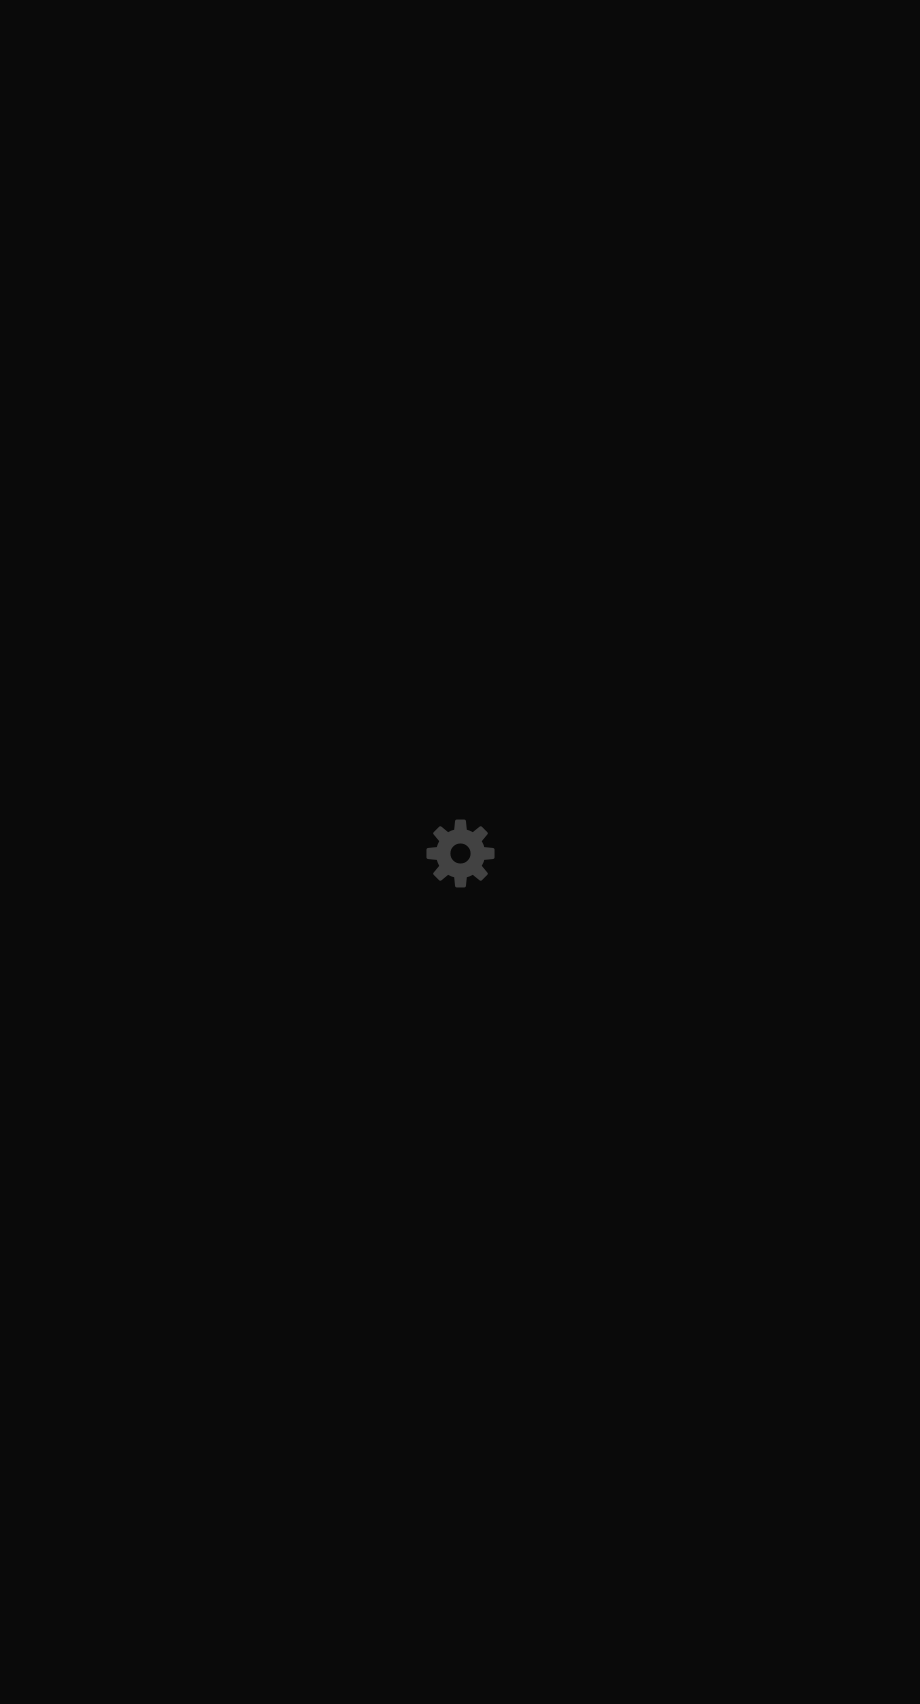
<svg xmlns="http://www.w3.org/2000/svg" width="920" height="1704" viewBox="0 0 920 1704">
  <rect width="100%" height="100%" fill="#0a0a0a"/>
  <image x="426" y="819" width="69" height="69" href="images/1.png"/>
</svg>
